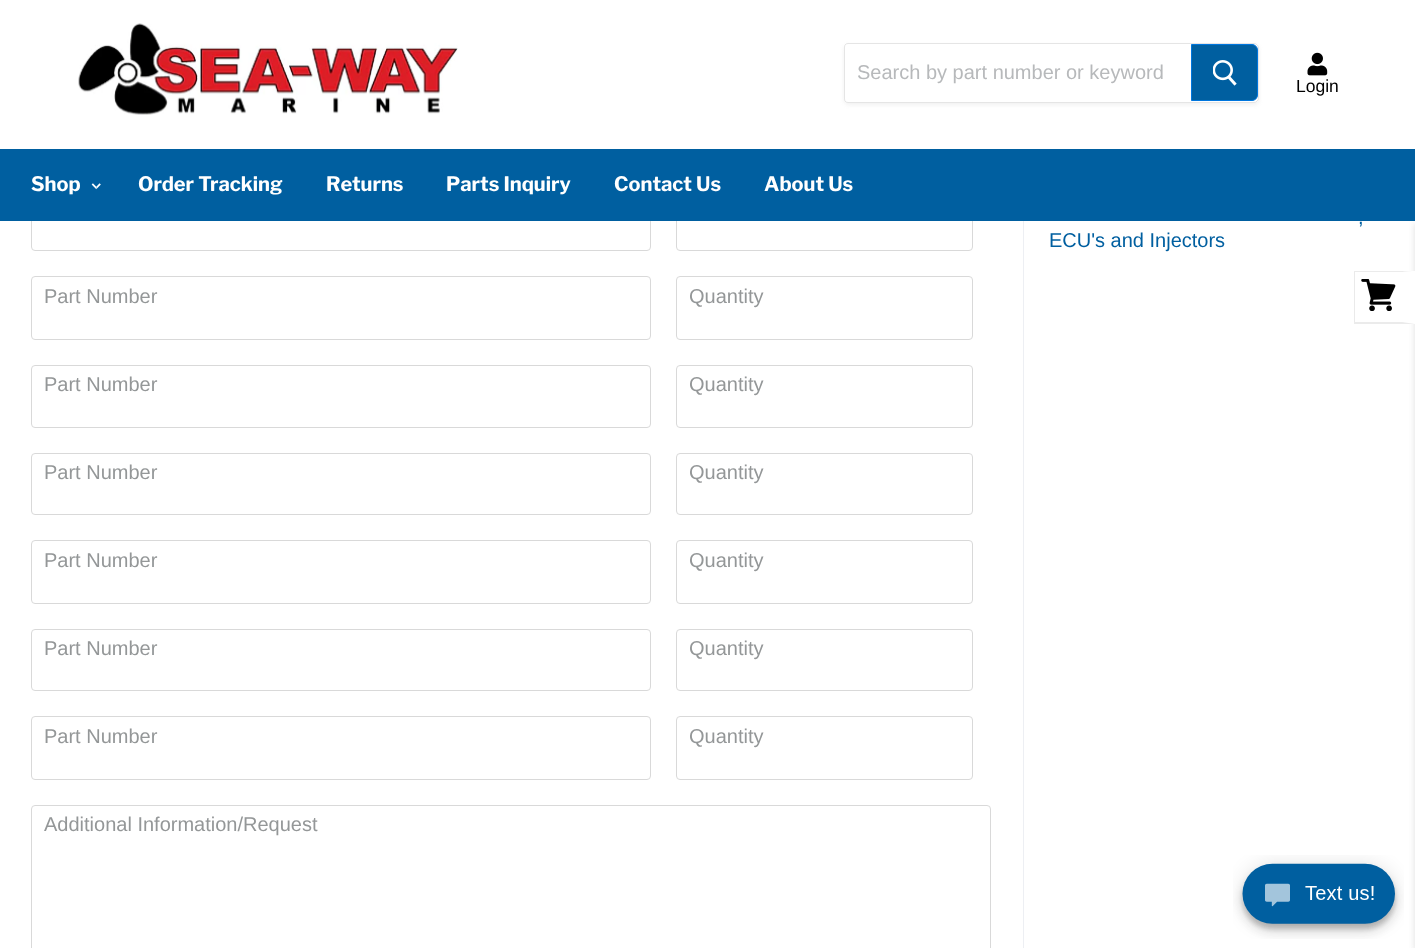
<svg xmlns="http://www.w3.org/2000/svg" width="1415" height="948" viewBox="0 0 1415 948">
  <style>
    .t1 { font: 20px Liberation Sans; fill: #b7b9bb; }
    .t2 { font: 17.5px Liberation Sans; fill: #000; }
    .t3 { font: bold 20px Libre Franklin; fill: #fff; }
    .t4 { font: 20px Liberation Sans; fill: #005fa0; }
    .t5 { font: 20px Liberation Sans; fill: #949798; }
  </style>
  <defs>
    <clipPath id="clip1"><path d="M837 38H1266V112H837ZM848 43H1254C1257 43 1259 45 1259 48V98C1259 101 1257 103 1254 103H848C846 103 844 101 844 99V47C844 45 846 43 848 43Z" clip-rule="evenodd"/></clipPath>
  </defs>
  <rect width="100%" height="100%" fill="#fff"/>
  <image x="78" y="23" width="380" height="92" href="images/1.png"/>
  <g clip-path="url(#clip1)">
    <rect x="844" y="45" width="415" height="60" rx="5" fill="#7f7f7f1c" filter="blur(2px)"/>
  </g>
  <path d="M848 43.5H1254C1256.5 43.5 1258.5 45.5 1258.5 48V98C1258.5 100.5 1256.5 102.5 1254 102.5H848C846 102.5 844.5 101 844.5 99V47C844.5 45 846 43.5 848 43.5Z" fill="none" stroke="#7f7f7f33"/>
  <text x="857" y="79" class="t1">Search by part number or keyword</text>
  <path d="M1191.5 44.5H1252C1255 44.5 1257.5 47 1257.5 50V95C1257.5 98 1255 100.5 1252 100.5H1191.5Z" fill="#005fa0" stroke="#0076de"/>
  <image x="1213" y="60" width="24" height="26" href="images/2.png"/>
  <image x="1307" y="52" width="21" height="24" href="images/3.png"/>
  <text x="1296" y="92" class="t2">Login</text>
  <rect x="31.5" y="189.5" width="619" height="61" rx="3.5" fill="none" stroke="#d9d9d9"/>
  <rect x="676.5" y="189.5" width="296" height="61" rx="3.5" fill="none" stroke="#d9d9d9"/>
  <rect x="1415" y="224" width="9" height="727" fill="#7f7f7f40" filter="blur(3px)"/>
  <rect x="0" y="149" width="1415" height="72" fill="#005fa0"/>
  <text x="31" y="191" class="t3">Shop</text>
  <image x="91" y="183" width="10" height="7" href="images/4.png"/>
  <text x="138" y="191" class="t3">Order Tracking</text>
  <text x="326" y="191" class="t3">Returns</text>
  <text x="446" y="191" class="t3">Parts Inquiry</text>
  <text x="614" y="191" class="t3">Contact Us</text>
  <text x="764" y="191" class="t3">About Us</text>
  <rect x="1023" y="221" width="1" height="727" fill="#edeff3"/>
  <text x="1358" y="224" class="t4">,</text>
  <text x="1049" y="247" class="t4">ECU's and Injectors</text>
  <rect x="31.5" y="276.5" width="619" height="63" rx="3.5" fill="none" stroke="#d9d9d9"/>
  <text x="44" y="303" class="t5">Part Number</text>
  <rect x="676.5" y="276.5" width="296" height="63" rx="3.5" fill="none" stroke="#d9d9d9"/>
  <text x="689" y="303" class="t5">Quantity</text>
  <rect x="31.5" y="365.5" width="619" height="62" rx="3.5" fill="none" stroke="#d9d9d9"/>
  <text x="44" y="391" class="t5">Part Number</text>
  <rect x="676.5" y="365.5" width="296" height="62" rx="3.5" fill="none" stroke="#d9d9d9"/>
  <text x="689" y="391" class="t5">Quantity</text>
  <rect x="31.5" y="453.5" width="619" height="61" rx="3.5" fill="none" stroke="#d9d9d9"/>
  <text x="44" y="479" class="t5">Part Number</text>
  <rect x="676.5" y="453.5" width="296" height="61" rx="3.5" fill="none" stroke="#d9d9d9"/>
  <text x="689" y="479" class="t5">Quantity</text>
  <rect x="31.5" y="540.5" width="619" height="63" rx="3.5" fill="none" stroke="#d9d9d9"/>
  <text x="44" y="567" class="t5">Part Number</text>
  <rect x="676.5" y="540.5" width="296" height="63" rx="3.5" fill="none" stroke="#d9d9d9"/>
  <text x="689" y="567" class="t5">Quantity</text>
  <rect x="31.5" y="629.5" width="619" height="61" rx="3.5" fill="none" stroke="#d9d9d9"/>
  <text x="44" y="655" class="t5">Part Number</text>
  <rect x="676.5" y="629.5" width="296" height="61" rx="3.5" fill="none" stroke="#d9d9d9"/>
  <text x="689" y="655" class="t5">Quantity</text>
  <rect x="31.5" y="716.5" width="619" height="63" rx="3.5" fill="none" stroke="#d9d9d9"/>
  <text x="44" y="743" class="t5">Part Number</text>
  <rect x="676.5" y="716.5" width="296" height="63" rx="3.5" fill="none" stroke="#d9d9d9"/>
  <text x="689" y="743" class="t5">Quantity</text>
  <rect x="31.5" y="805.5" width="959" height="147" rx="3.5" fill="none" stroke="#d9d9d9"/>
  <text x="44" y="831" class="t5">Additional Information/Request</text>
  <rect x="1411" y="271" width="4" height="53" fill="#fff"/>
  <path d="M1354 271H1415L1402 272H1355Z" fill="#ebebeb"/>
  <path d="M1415 271V324L1402 322V272Z" fill="#fff"/>
  <path d="M1415 324H1354L1355 322H1402Z" fill="#ebebeb"/>
  <path d="M1354 324V271L1355 272V322Z" fill="#7f7f7f29"/>
  <image x="1361" y="279" width="35" height="32" href="images/5.png"/>
  <image x="1233" y="855" width="171" height="84" href="images/6.png"/>
</svg>
